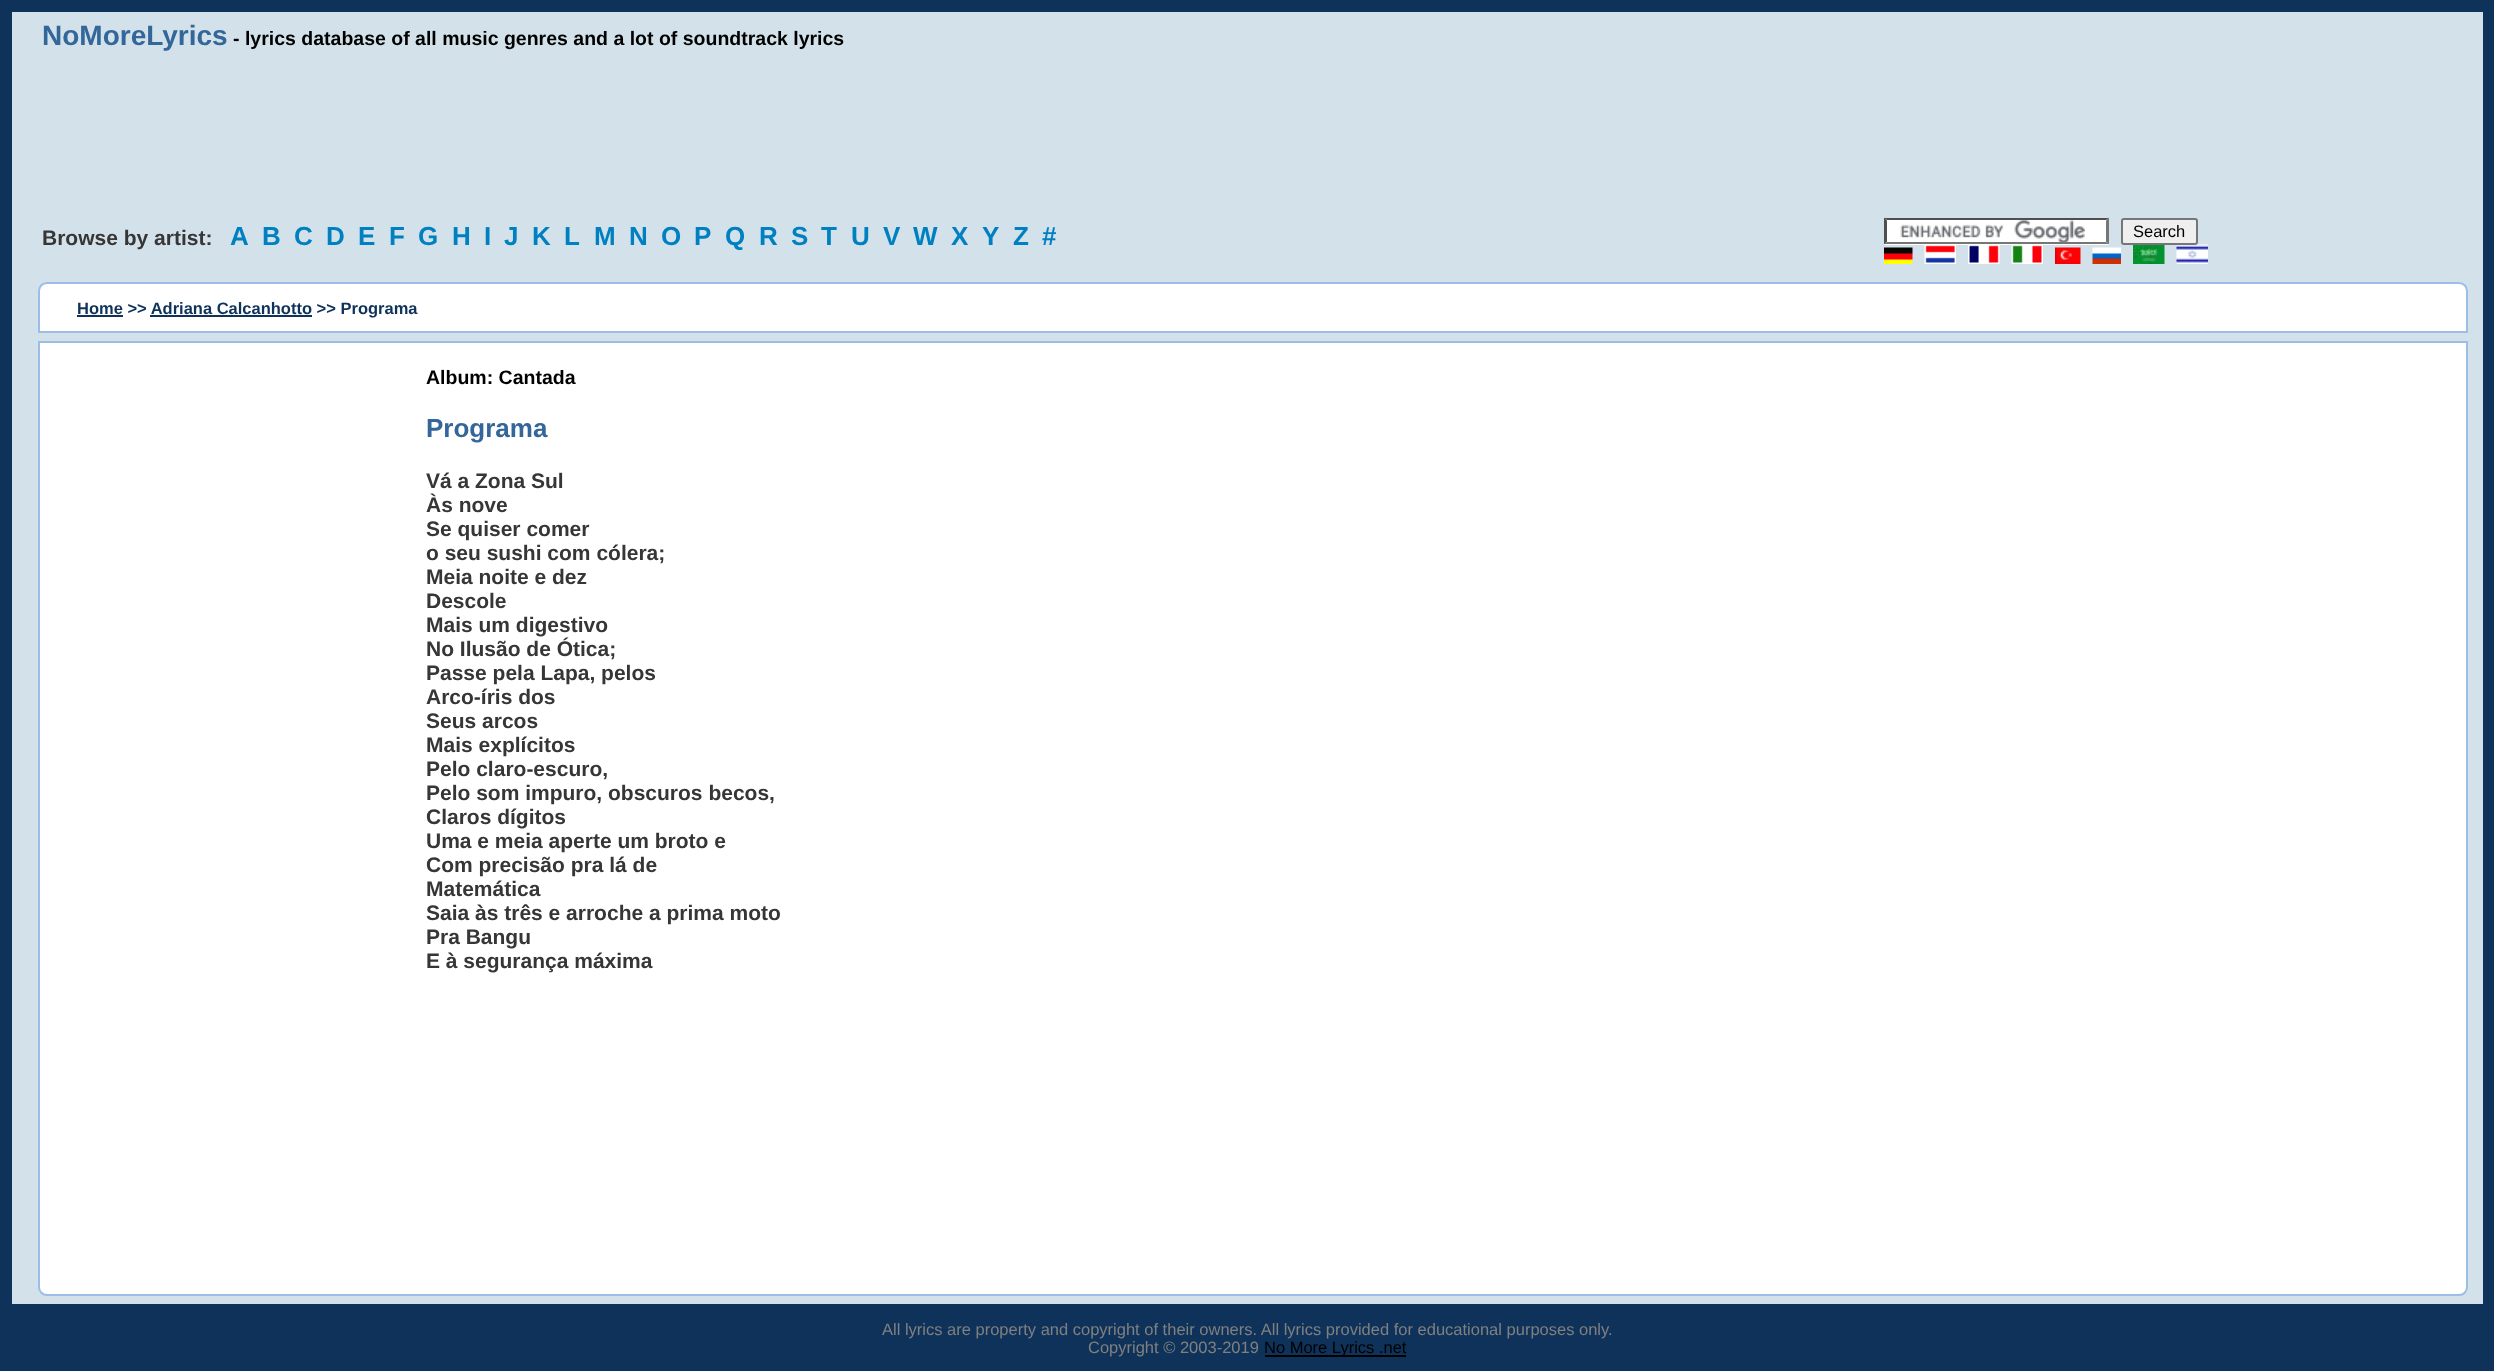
<svg xmlns="http://www.w3.org/2000/svg" width="2494" height="1371" viewBox="0 0 2494 1371">
  <style>
    .t1 { font: bold 28px Liberation Sans; fill: #369; }
    .t2 { font: bold 19.5px Liberation Sans; fill: #000; }
    .t3 { font: bold 21px Liberation Sans; fill: #363636; }
    .t4 { font: bold 26px Liberation Sans; letter-spacing: 8px; fill: #0080c1; }
    .t5 { font: 16.5px Liberation Sans; fill: #000; }
    .t6 { font: bold 16.5px Liberation Sans; fill: #0e3259; }
    .t7 { font: bold 26px Liberation Sans; fill: #369; }
    .t8 { font: 16.5px Liberation Sans; fill: #808080; }
  </style>
  <rect width="100%" height="100%" fill="#0e3259"/>
  <rect x="12" y="12" width="2471" height="1292" fill="#d3e2ea"/>
  <text x="42" y="45" class="t1">NoMoreLyrics</text>
  <text x="233" y="45" class="t2">- lyrics database of all music genres and a lot of soundtrack lyrics</text>
  <text x="42" y="245" class="t3">Browse by artist:</text>
  <text x="230" y="245" class="t4">A</text>
  <text x="262" y="245" class="t4">B</text>
  <text x="294" y="245" class="t4">C</text>
  <text x="326" y="245" class="t4">D</text>
  <text x="358" y="245" class="t4">E</text>
  <text x="389" y="245" class="t4">F</text>
  <text x="418" y="245" class="t4">G</text>
  <text x="452" y="245" class="t4">H</text>
  <text x="484" y="245" class="t4">I</text>
  <text x="504" y="245" class="t4">J</text>
  <text x="532" y="245" class="t4">K</text>
  <text x="564" y="245" class="t4">L</text>
  <text x="594" y="245" class="t4">M</text>
  <text x="629" y="245" class="t4">N</text>
  <text x="661" y="245" class="t4">O</text>
  <text x="694" y="245" class="t4">P</text>
  <text x="725" y="245" class="t4">Q</text>
  <text x="759" y="245" class="t4">R</text>
  <text x="791" y="245" class="t4">S</text>
  <text x="821" y="245" class="t4">T</text>
  <text x="851" y="245" class="t4">U</text>
  <text x="883" y="245" class="t4">V</text>
  <text x="913" y="245" class="t4">W</text>
  <text x="951" y="245" class="t4">X</text>
  <text x="982" y="245" class="t4">Y</text>
  <text x="1013" y="245" class="t4">Z</text>
  <text x="1042" y="245" class="t4">#</text>
  <rect x="1884" y="218" width="225" height="27" fill="#fff"/>
  <image x="1900" y="220" width="185" height="22" href="images/1.png"/>
  <path d="M1884 218H2109L2106 220H1887Z" fill="#4f4f4f"/>
  <path d="M2109 217.5V244.5L2106 241.5V220.5Z" fill="#767676"/>
  <path d="M2109 244H1884L1887 242H2106Z" fill="#767676"/>
  <path d="M1884 244.5V217.5L1887 220.5V241.5Z" fill="#4f4f4f"/>
  <image x="2176" y="244" width="32" height="20" href="images/9.png"/>
  <rect x="2122" y="219" width="75" height="25" rx="2" fill="#efefef" stroke="#767676" stroke-width="2"/>
  <text x="2133" y="237" class="t5">Search</text>
  <image x="1884" y="247" width="29" height="17" href="images/2.png"/>
  <image x="1924" y="245" width="32" height="19" href="images/3.png"/>
  <image x="1968" y="245" width="32" height="19" href="images/4.png"/>
  <image x="2011" y="245" width="32" height="19" href="images/5.png"/>
  <image x="2055" y="247" width="26" height="17" href="images/6.png"/>
  <image x="2092" y="247" width="29" height="17" href="images/7.png"/>
  <image x="2133" y="245" width="32" height="19" href="images/8.png"/>
  <path d="M47 283H2459C2463.5 283 2467 286.5 2467 291V332H39V291C39 286.5 42.5 283 47 283Z" fill="#fff" stroke="#9cbee6" stroke-width="2"/>
  <rect x="77" y="315" width="46" height="2" fill="#0e3259"/>
  <text x="77" y="314" class="t6">Home &gt;&gt; Adriana Calcanhotto &gt;&gt; Programa</text>
  <rect x="150" y="315" width="162" height="2" fill="#0e3259"/>
  <path d="M39 342H2467V1287C2467 1291.5 2463.5 1295 2459 1295H47C42.5 1295 39 1291.5 39 1287Z" fill="#fff" stroke="#9cbee6" stroke-width="2"/>
  <text x="426" y="384" class="t2">Album: Cantada</text>
  <text x="426" y="437" class="t7">Programa</text>
  <text x="426" y="488" class="t3">Vá a Zona Sul</text>
  <text x="426" y="512" class="t3">Às nove</text>
  <text x="426" y="536" class="t3">Se quiser comer</text>
  <text x="426" y="560" class="t3">o seu sushi com cólera;</text>
  <text x="426" y="584" class="t3">Meia noite e dez</text>
  <text x="426" y="608" class="t3">Descole</text>
  <text x="426" y="632" class="t3">Mais um digestivo</text>
  <text x="426" y="656" class="t3">No Ilusão de Ótica;</text>
  <text x="426" y="680" class="t3">Passe pela Lapa, pelos</text>
  <text x="426" y="704" class="t3">Arco-íris dos</text>
  <text x="426" y="728" class="t3">Seus arcos</text>
  <text x="426" y="752" class="t3">Mais explícitos</text>
  <text x="426" y="776" class="t3">Pelo claro-escuro,</text>
  <text x="426" y="800" class="t3">Pelo som impuro, obscuros becos,</text>
  <text x="426" y="824" class="t3">Claros dígitos</text>
  <text x="426" y="848" class="t3">Uma e meia aperte um broto e</text>
  <text x="426" y="872" class="t3">Com precisão pra lá de</text>
  <text x="426" y="896" class="t3">Matemática</text>
  <text x="426" y="920" class="t3">Saia às três e arroche a prima moto</text>
  <text x="426" y="944" class="t3">Pra Bangu</text>
  <text x="426" y="968" class="t3">E à segurança máxima</text>
  <text x="882" y="1335" class="t8">All lyrics are property and copyright of their owners. All lyrics provided for educational purposes only.</text>
  <text x="1088" y="1353" class="t8">Copyright © 2003-2019</text>
  <rect x="1265" y="1355" width="141" height="2" fill="#000"/>
  <text x="1264" y="1353" class="t5">No More Lyrics .net</text>
</svg>
